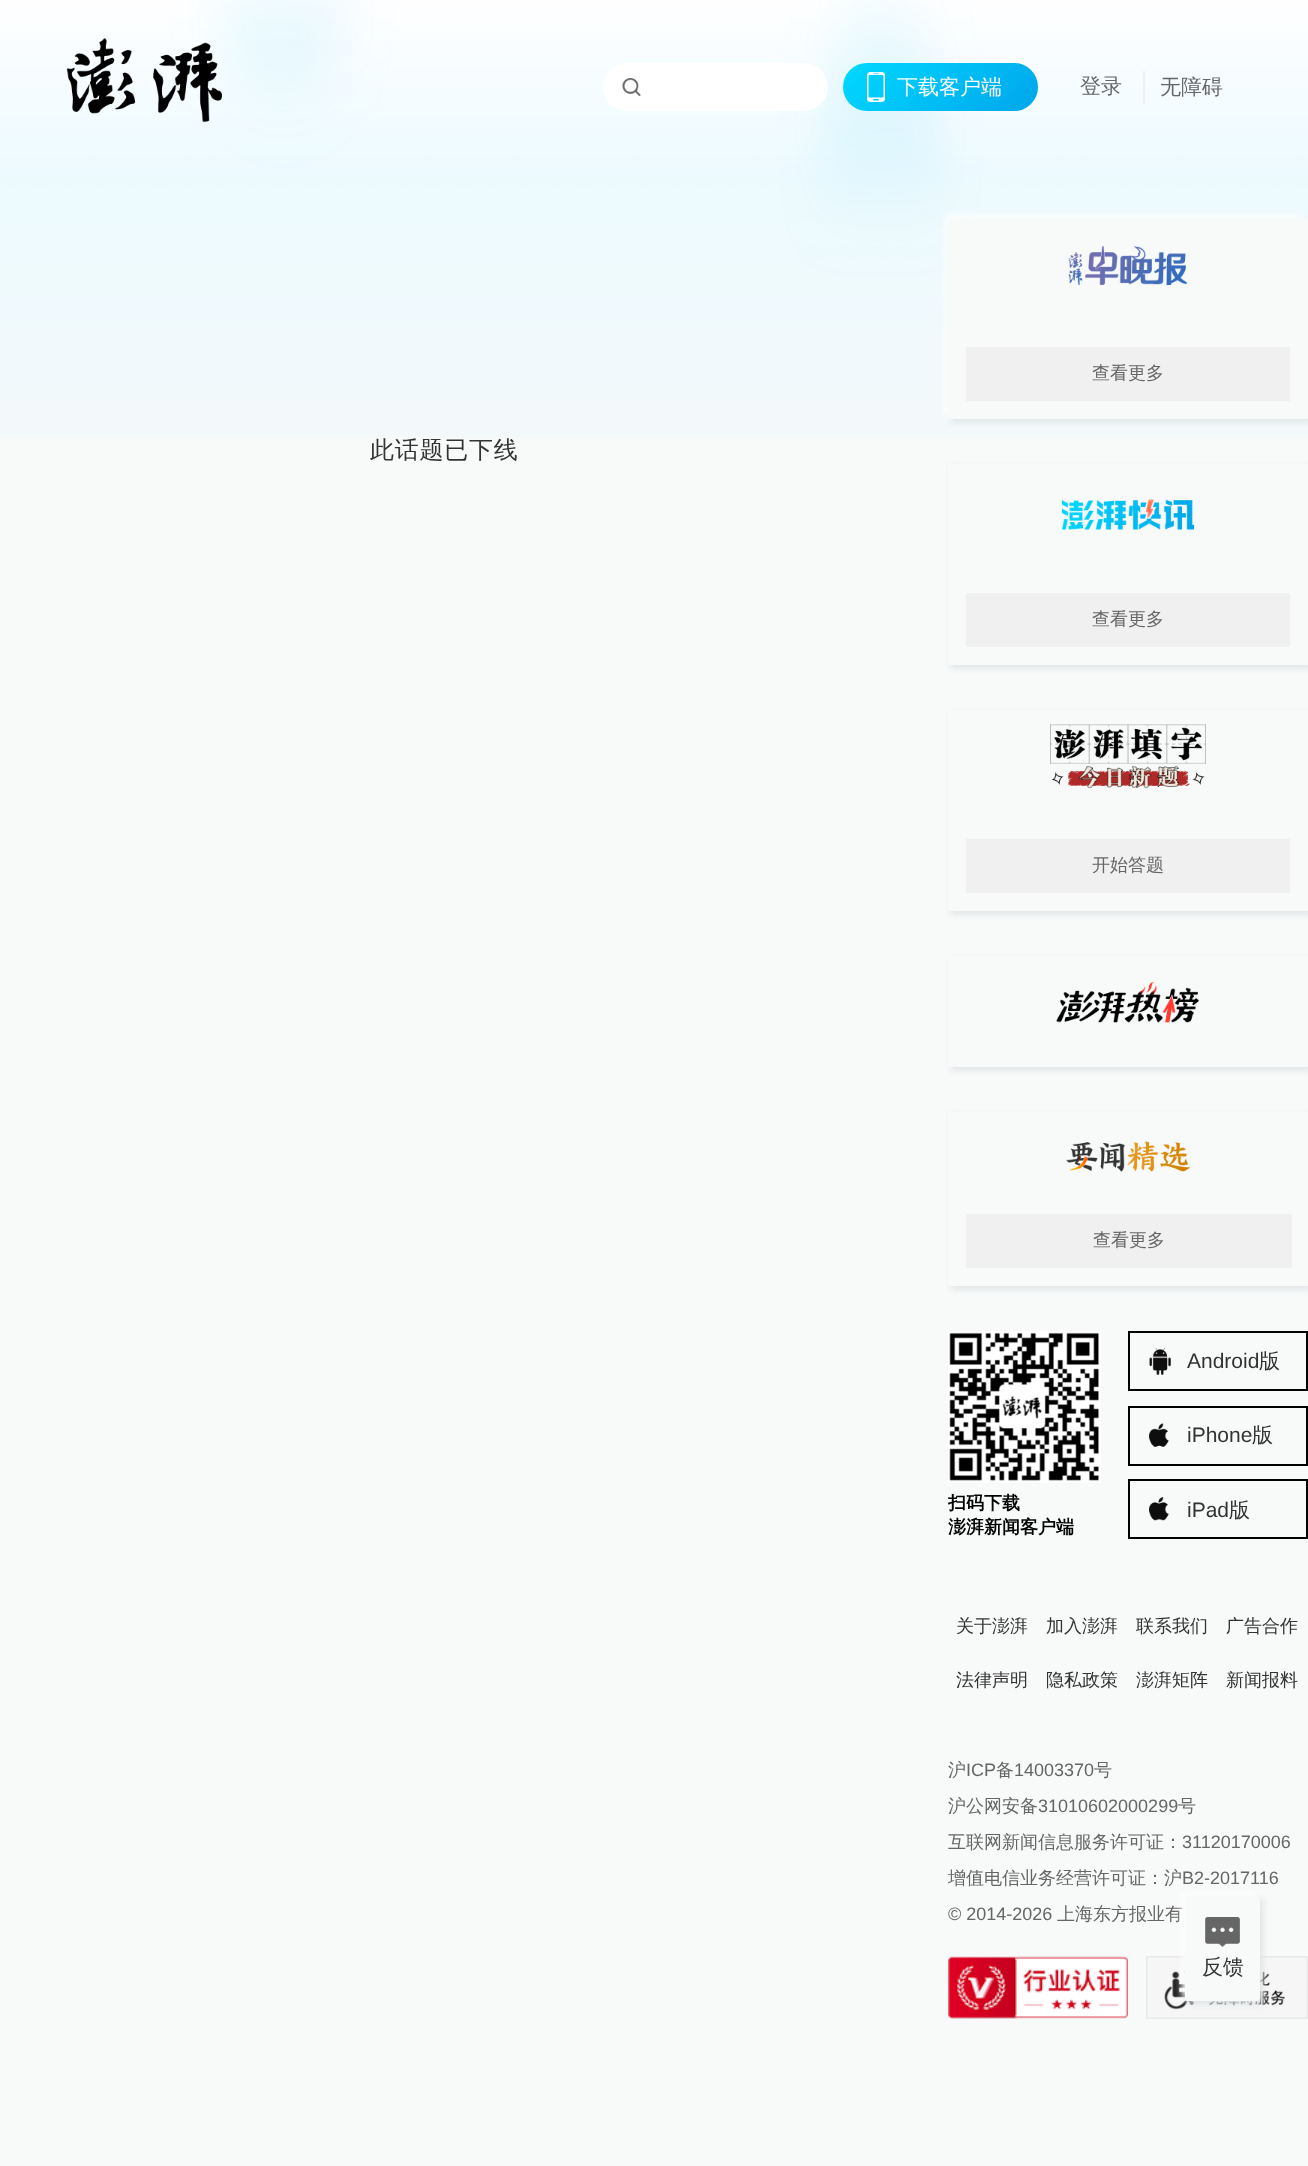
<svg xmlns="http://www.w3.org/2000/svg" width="1308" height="2166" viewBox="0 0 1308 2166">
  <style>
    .t1 { font: 500 21px WenQuanYi Zen Hei; fill: #fff; }
    .t2 { font: 500 21px WenQuanYi Zen Hei; fill: #666; }
    .t3 { font: 500 24px WenQuanYi Zen Hei; letter-spacing: 0.75px; fill: #333; }
    .t4 { font: 500 18px WenQuanYi Zen Hei; fill: #666; }
    .t5 { font: bold 18px WenQuanYi Zen Hei; fill: #000; }
    .t6 { font: 21px Liberation Sans; fill: #333; }
    .t7 { font: 500 21px WenQuanYi Zen Hei; fill: #333; }
    .t8 { font: 500 18px WenQuanYi Zen Hei; fill: #333; }
    .t9 { font: 18px Liberation Sans; fill: #666; }
  </style>
  <defs>
    <linearGradient id="g1" gradientUnits="userSpaceOnUse" x1="880" y1="26" x2="1001" y2="148"><stop offset="0" stop-color="#00d9ff"/><stop offset="1" stop-color="#00a5eb"/></linearGradient>
    <clipPath id="clip1"><path d="M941 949H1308V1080H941ZM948 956H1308V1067H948Z" clip-rule="evenodd"/></clipPath>
    <clipPath id="clip2"><path d="M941 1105H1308V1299H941ZM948 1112H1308V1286H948Z" clip-rule="evenodd"/></clipPath>
  </defs>
  <rect width="100%" height="100%" fill="#f8f9f9"/>
  <image x="0" y="0" width="1308" height="437" href="images/1.png"/>
  <image x="66" y="38" width="156" height="85" href="images/2.png"/>
  <rect x="603" y="63" width="225" height="48" rx="24" fill="#fff"/>
  <image x="622" y="78" width="19" height="18" href="images/3.png"/>
  <rect x="843" y="63" width="195" height="48" rx="24" fill="url(#g1)"/>
  <image x="867" y="72" width="18" height="30" href="images/4.png"/>
  <text x="897" y="94" class="t1">下载客户端</text>
  <text x="1080" y="93" class="t2">登录</text>
  <rect x="1143" y="71" width="2" height="33" fill="#f0f0f0"/>
  <text x="1160" y="94" class="t2">无障碍</text>
  <text x="370" y="458" class="t3">此话题已下线</text>
  <rect x="945" y="215" width="360" height="201" fill="#fff" filter="blur(3px)"/>
  <rect x="951" y="221" width="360" height="201" fill="#dee4e6" filter="blur(3px)"/>
  <rect x="948" y="218" width="360" height="201" fill="#f8f9f9"/>
  <image x="1068" y="246" width="120" height="39" href="images/5.png"/>
  <rect x="966" y="347" width="324" height="54" fill="#f0f0f0"/>
  <text x="1092" y="379" class="t4">查看更多</text>
  <rect x="951" y="467" width="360" height="201" fill="#dee4e6" filter="blur(3px)"/>
  <rect x="948" y="464" width="360" height="201" fill="#f8f9f9"/>
  <image x="1062" y="499" width="132" height="31" href="images/6.png"/>
  <rect x="966" y="593" width="324" height="54" fill="#f0f0f0"/>
  <text x="1092" y="625" class="t4">查看更多</text>
  <rect x="951" y="713" width="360" height="201" fill="#dee4e6" filter="blur(3px)"/>
  <rect x="948" y="710" width="360" height="201" fill="#f8f9f9"/>
  <image x="1050" y="724" width="156" height="65" href="images/7.png"/>
  <rect x="966" y="839" width="324" height="54" fill="#f0f0f0"/>
  <text x="1092" y="871" class="t4">开始答题</text>
  <g clip-path="url(#clip1)">
    <rect x="951" y="959" width="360" height="111" fill="#dee4e6" filter="blur(3px)"/>
  </g>
  <image x="1056" y="981" width="144" height="42" href="images/8.png"/>
  <g clip-path="url(#clip2)">
    <rect x="951" y="1115" width="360" height="174" fill="#dee4e6" filter="blur(3px)"/>
  </g>
  <image x="1066" y="1141" width="125" height="31" href="images/9.png"/>
  <rect x="966" y="1214" width="326" height="54" fill="#f0f0f0"/>
  <text x="1093" y="1246" class="t4">查看更多</text>
  <image x="948" y="1331" width="153" height="152" href="images/10.png"/>
  <text x="948" y="1509" class="t5">扫码下载</text>
  <text x="948" y="1533" class="t5">澎湃新闻客户端</text>
  <rect x="1129" y="1332" width="178" height="58" fill="none" stroke="#000" stroke-width="2"/>
  <image x="1149" y="1347" width="22" height="28" href="images/11.png"/>
  <text x="1187" y="1368" class="t6">Android</text>
  <text x="1259" y="1368" class="t7">版</text>
  <rect x="1129" y="1407" width="178" height="58" fill="none" stroke="#000" stroke-width="2"/>
  <image x="1149" y="1423" width="20" height="24" href="images/12.png"/>
  <text x="1187" y="1442" class="t6">iPhone</text>
  <text x="1252" y="1442" class="t7">版</text>
  <rect x="1129" y="1480" width="178" height="58" fill="none" stroke="#000" stroke-width="2"/>
  <image x="1149" y="1497" width="20" height="24" href="images/13.png"/>
  <text x="1187" y="1517" class="t6">iPad</text>
  <text x="1229" y="1517" class="t7">版</text>
  <text x="956" y="1632" class="t8">关于澎湃</text>
  <text x="1046" y="1632" class="t8">加入澎湃</text>
  <text x="1136" y="1632" class="t8">联系我们</text>
  <text x="1226" y="1632" class="t8">广告合作</text>
  <text x="956" y="1686" class="t8">法律声明</text>
  <text x="1046" y="1686" class="t8">隐私政策</text>
  <text x="1136" y="1686" class="t8">澎湃矩阵</text>
  <text x="1226" y="1686" class="t8">新闻报料</text>
  <text x="948" y="1776" class="t4">沪</text>
  <text x="966" y="1776" class="t9">ICP</text>
  <text x="996" y="1776" class="t4">备</text>
  <text x="1014" y="1776" class="t9">14003370</text>
  <text x="1094" y="1776" class="t4">号</text>
  <text x="948" y="1812" class="t4">沪公网安备</text>
  <text x="1038" y="1812" class="t9">31010602000299</text>
  <text x="1178" y="1812" class="t4">号</text>
  <text x="948" y="1848" class="t4">互联网新闻信息服务许可证：</text>
  <text x="1182" y="1848" class="t9">31120170006</text>
  <text x="948" y="1884" class="t4">增值电信业务经营许可证：沪</text>
  <text x="1182" y="1884" class="t9">B2-2017116</text>
  <text x="948" y="1920" class="t9">© 2014-2026</text>
  <text x="1057" y="1920" class="t4">上海东方报业有</text>
  <image x="948" y="1956" width="180" height="63" href="images/14.png"/>
  <rect x="1147" y="1957" width="160" height="61" fill="none" stroke="#e8e8e8" stroke-width="2"/>
  <image x="1147" y="1957" width="160" height="61" href="images/15.png"/>
  <rect x="1182" y="1893" width="75" height="105" rx="3" fill="#fff" filter="blur(3px)"/>
  <rect x="1188" y="1899" width="75" height="105" rx="3" fill="#dee4e6" filter="blur(3px)"/>
  <rect x="1185" y="1896" width="75" height="105" rx="3" fill="#f8f9f9"/>
  <image x="1205" y="1917" width="35" height="30" href="images/16.png"/>
  <text x="1202" y="1974" class="t7">反馈</text>
</svg>
